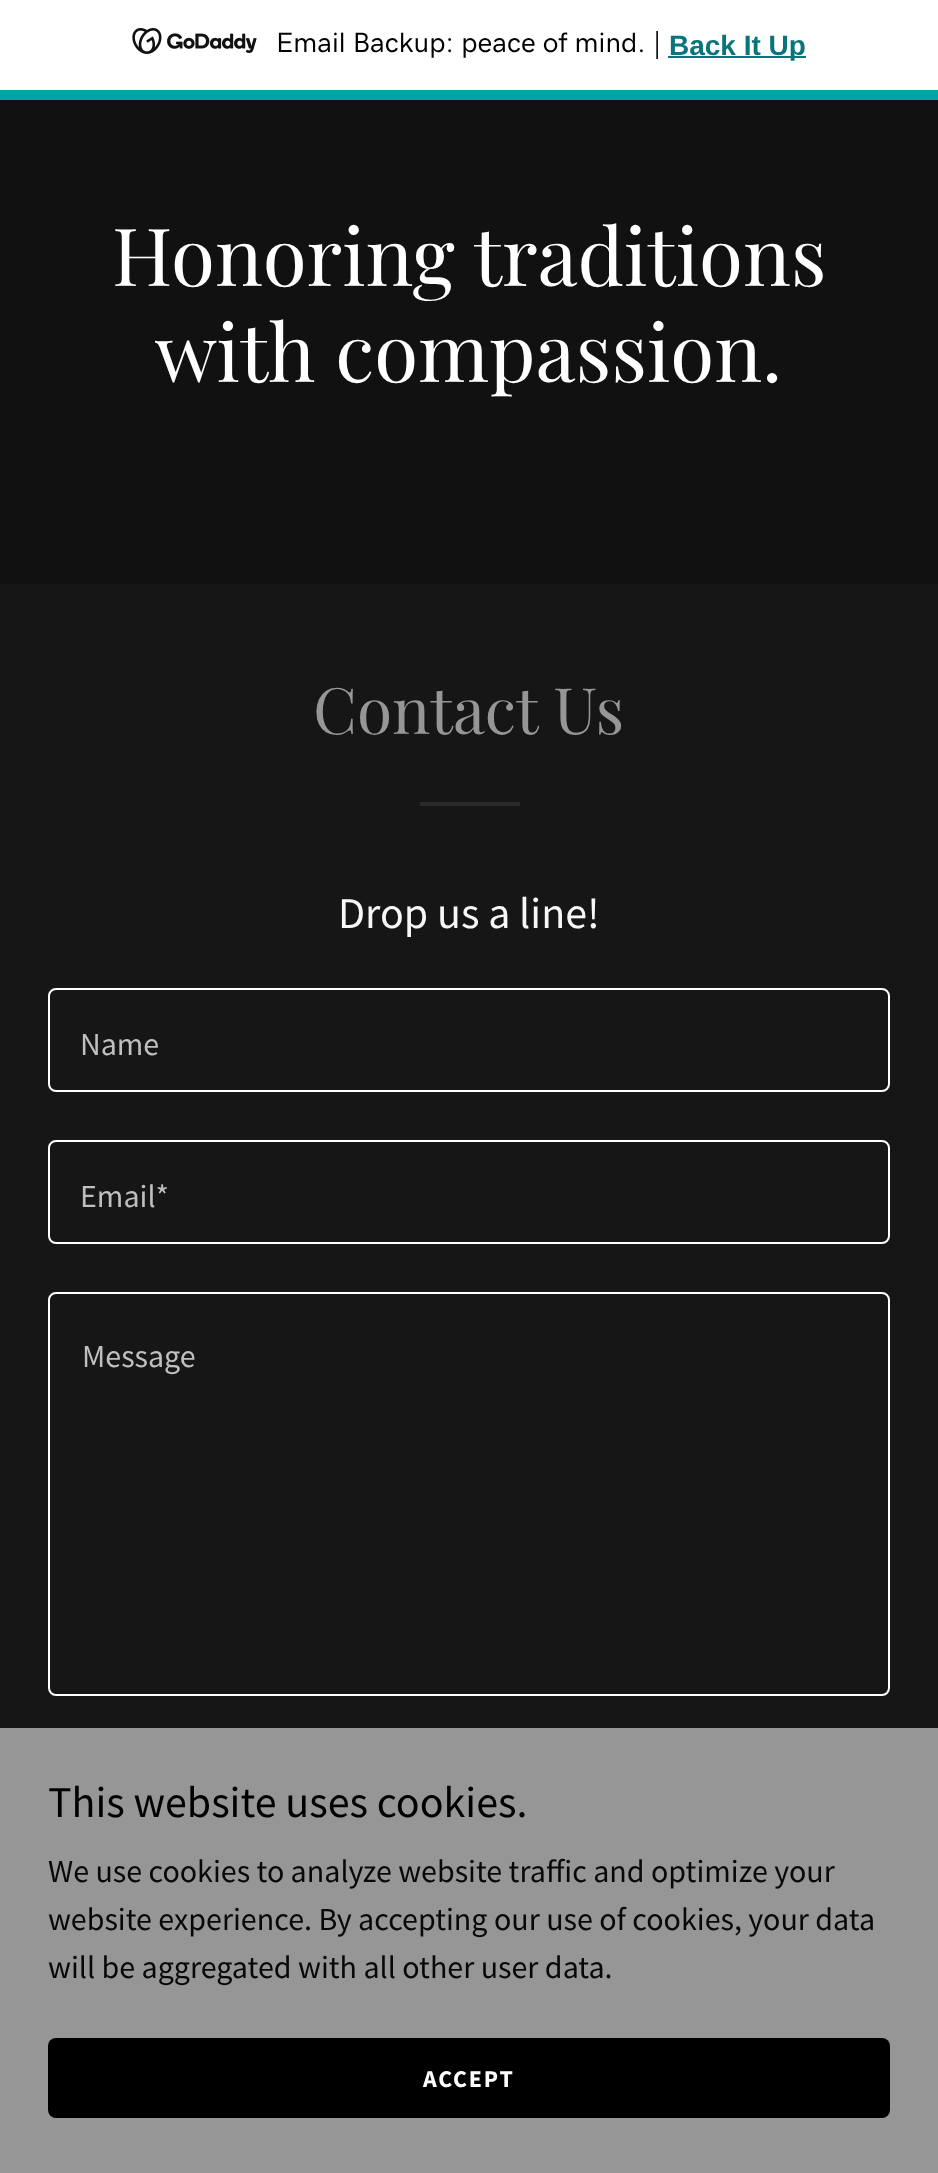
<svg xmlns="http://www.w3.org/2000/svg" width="938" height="2173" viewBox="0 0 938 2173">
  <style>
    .t1 { font: 500 28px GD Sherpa; fill: #000; }
    .t2 { font: bold 28px Liberation Sans; fill: #09757a; }
    .t3 { font: 80px Playfair Display; fill: #fff; }
    .t4 { font: 64px Playfair Display; fill: #969696; }
    .t5 { font: 44px Source Sans Pro; fill: #f7f7f7; }
    .t6 { font: 32px Source Sans Pro; fill: #bfbfbf; }
    .t7 { font: 44px Source Sans Pro; fill: #000; }
    .t8 { font: 32px Source Sans Pro; fill: #080808; }
    .t9 { font: bold 24px Source Sans Pro; letter-spacing: 1.75px; fill: #fff; }
  </style>
  <rect width="100%" height="100%" fill="#161616"/>
  <rect x="0" y="0" width="938" height="90" fill="#fff"/>
  <rect x="0" y="90" width="938" height="10" fill="#00a4a6"/>
  <image x="132" y="28" width="125" height="26" href="images/1.png"/>
  <text x="276" y="52" class="t1">Email Backup: peace of mind. |</text>
  <rect x="668" y="56" width="138" height="2" fill="#09757a"/>
  <text x="669" y="55" class="t2">Back It Up</text>
  <rect x="0" y="100" width="938" height="484" fill="#111"/>
  <text x="112" y="286" class="t3">Honoring traditions</text>
  <text x="155" y="382" class="t3">with compassion.</text>
  <text x="313" y="734" class="t4">Contact Us</text>
  <rect x="420" y="802" width="100" height="4" fill="#2a2a2a"/>
  <text x="338" y="928" class="t5">Drop us a line!</text>
  <rect x="49" y="989" width="840" height="102" rx="7" fill="none" stroke="#fff" stroke-width="2"/>
  <text x="80" y="1055" class="t6">Name</text>
  <rect x="49" y="1141" width="840" height="102" rx="7" fill="none" stroke="#fff" stroke-width="2"/>
  <text x="80" y="1207" class="t6">Email*</text>
  <rect x="49" y="1293" width="840" height="402" rx="7" fill="none" stroke="#fff" stroke-width="2"/>
  <text x="82" y="1367" class="t6">Message</text>
  <rect x="0" y="1728" width="938" height="445" fill="#969696"/>
  <text x="48" y="1817" class="t7">This website uses cookies.</text>
  <text x="48" y="1882" class="t8">We use cookies to analyze website traffic and optimize your</text>
  <text x="48" y="1930" class="t8">website experience. By accepting our use of cookies, your data</text>
  <text x="48" y="1978" class="t8">will be aggregated with all other user data.</text>
  <rect x="48" y="2038" width="842" height="80" rx="8" fill="#000"/>
  <text x="423" y="2087" class="t9">ACCEPT</text>
</svg>
